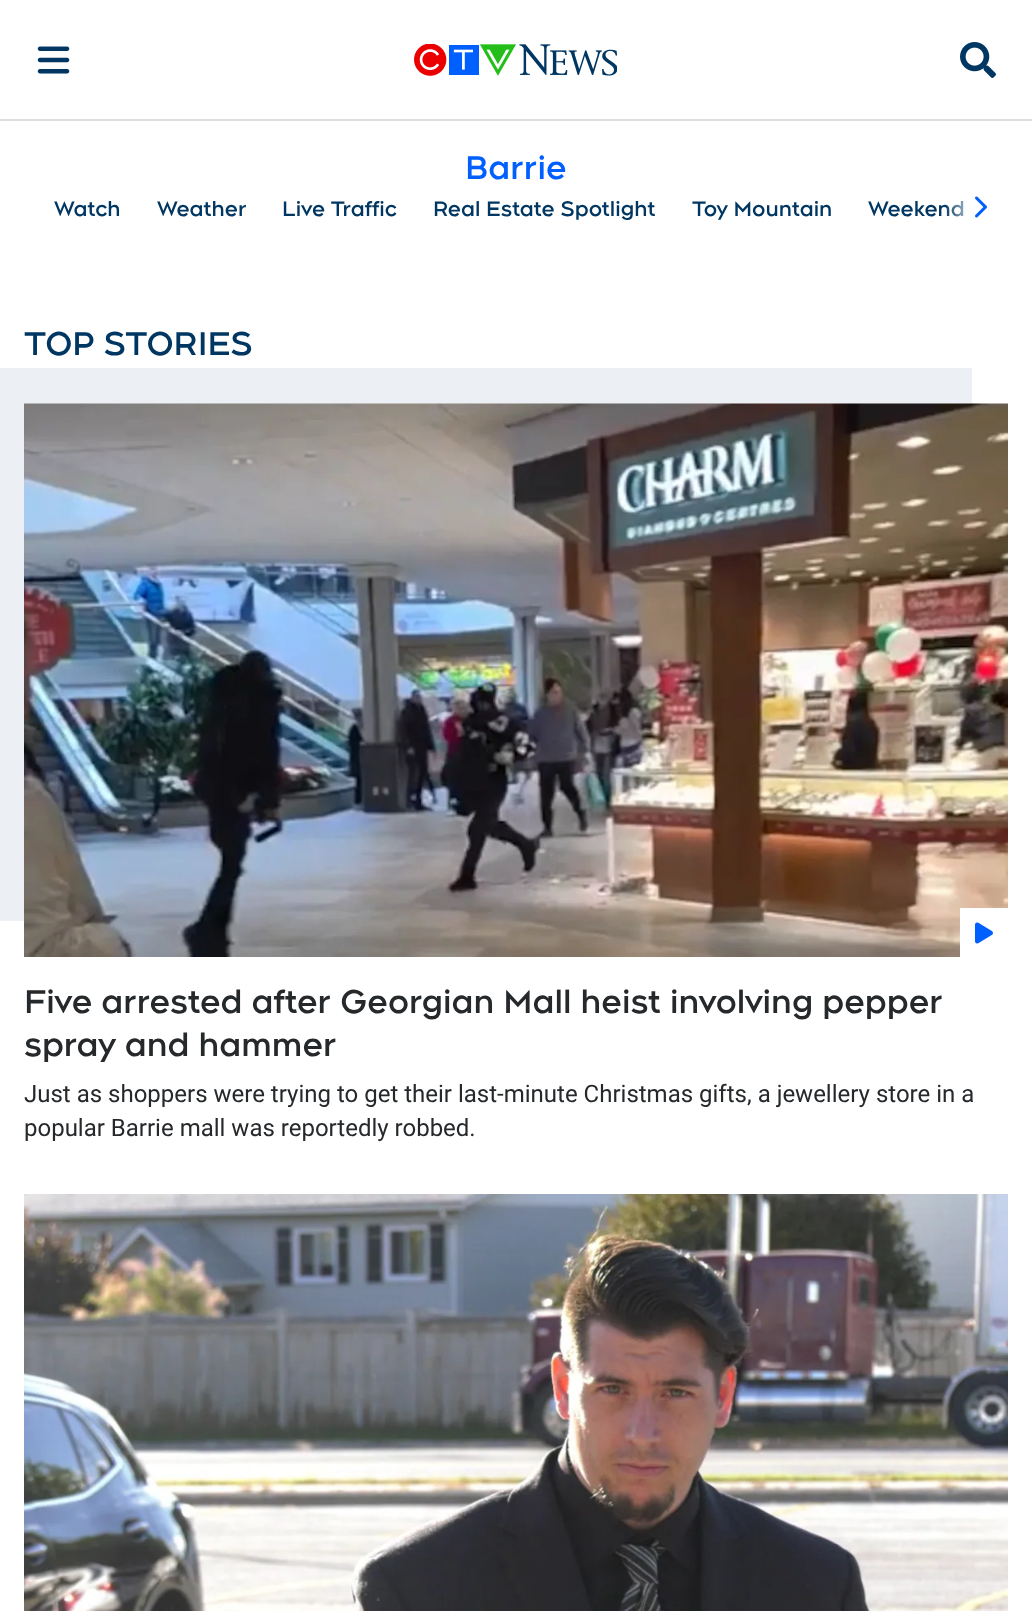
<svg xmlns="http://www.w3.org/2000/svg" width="1032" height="1611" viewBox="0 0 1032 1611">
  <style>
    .t1 { font: bold 33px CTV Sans; fill: #005fff; }
    .t2 { font: bold 21px CTV Sans; fill: #003662; }
    .t3 { font: bold 33px CTV Sans; fill: #003662; }
    .t4 { font: bold 33px CTV Sans; fill: #26292b; }
    .t5 { font: 24px Roboto; fill: #26292b; }
  </style>
  <defs>
    <clipPath id="clip1"><rect x="18" y="188" width="996" height="37"/></clipPath>
    <linearGradient id="g1" gradientUnits="userSpaceOnUse" x1="1016" y1="206" x2="944" y2="206"><stop offset="0.5" stop-color="#fff"/><stop offset="1" stop-color="#fff" stop-opacity="0"/></linearGradient>
  </defs>
  <rect width="100%" height="100%" fill="#fff"/>
  <rect x="0" y="119" width="1032" height="2" fill="#ddd"/>
  <image x="37" y="46" width="33" height="28" href="images/1.png"/>
  <image x="414" y="44" width="203" height="32" href="images/2.png"/>
  <image x="960" y="42" width="36" height="36" href="images/3.png"/>
  <text x="465" y="179" class="t1">Barrie</text>
  <text x="54" y="216" class="t2">Watch</text>
  <text x="157" y="216" class="t2">Weather</text>
  <text x="282" y="216" class="t2">Live Traffic</text>
  <text x="433" y="216" class="t2">Real Estate Spotlight</text>
  <text x="692" y="216" class="t2">Toy Mountain</text>
  <text x="868" y="216" class="t2">Weekend</text>
  <g clip-path="url(#clip1)">
    <rect x="944" y="188" width="72" height="37" rx="6" fill="url(#g1)"/>
  </g>
  <image x="975" y="196" width="12" height="22" href="images/4.png"/>
  <text x="24" y="355" class="t3">TOP STORIES</text>
  <path d="M-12 368V921H24V404H972V368Z" fill="#eceff3"/>
  <image x="24" y="403" width="984" height="554" href="images/5.png"/>
  <rect x="960" y="908" width="48" height="49" fill="#fff"/>
  <image x="975" y="922" width="18" height="22" href="images/6.png"/>
  <text x="24" y="1013" class="t4">Five arrested after Georgian Mall heist involving pepper</text>
  <text x="24" y="1056" class="t4">spray and hammer</text>
  <text x="24" y="1102" class="t5">Just as shoppers were trying to get their last-minute Christmas gifts, a jewellery store in a</text>
  <text x="24" y="1136" class="t5">popular Barrie mall was reportedly robbed.</text>
  <image x="24" y="1194" width="984" height="417" href="images/7.png"/>
</svg>
